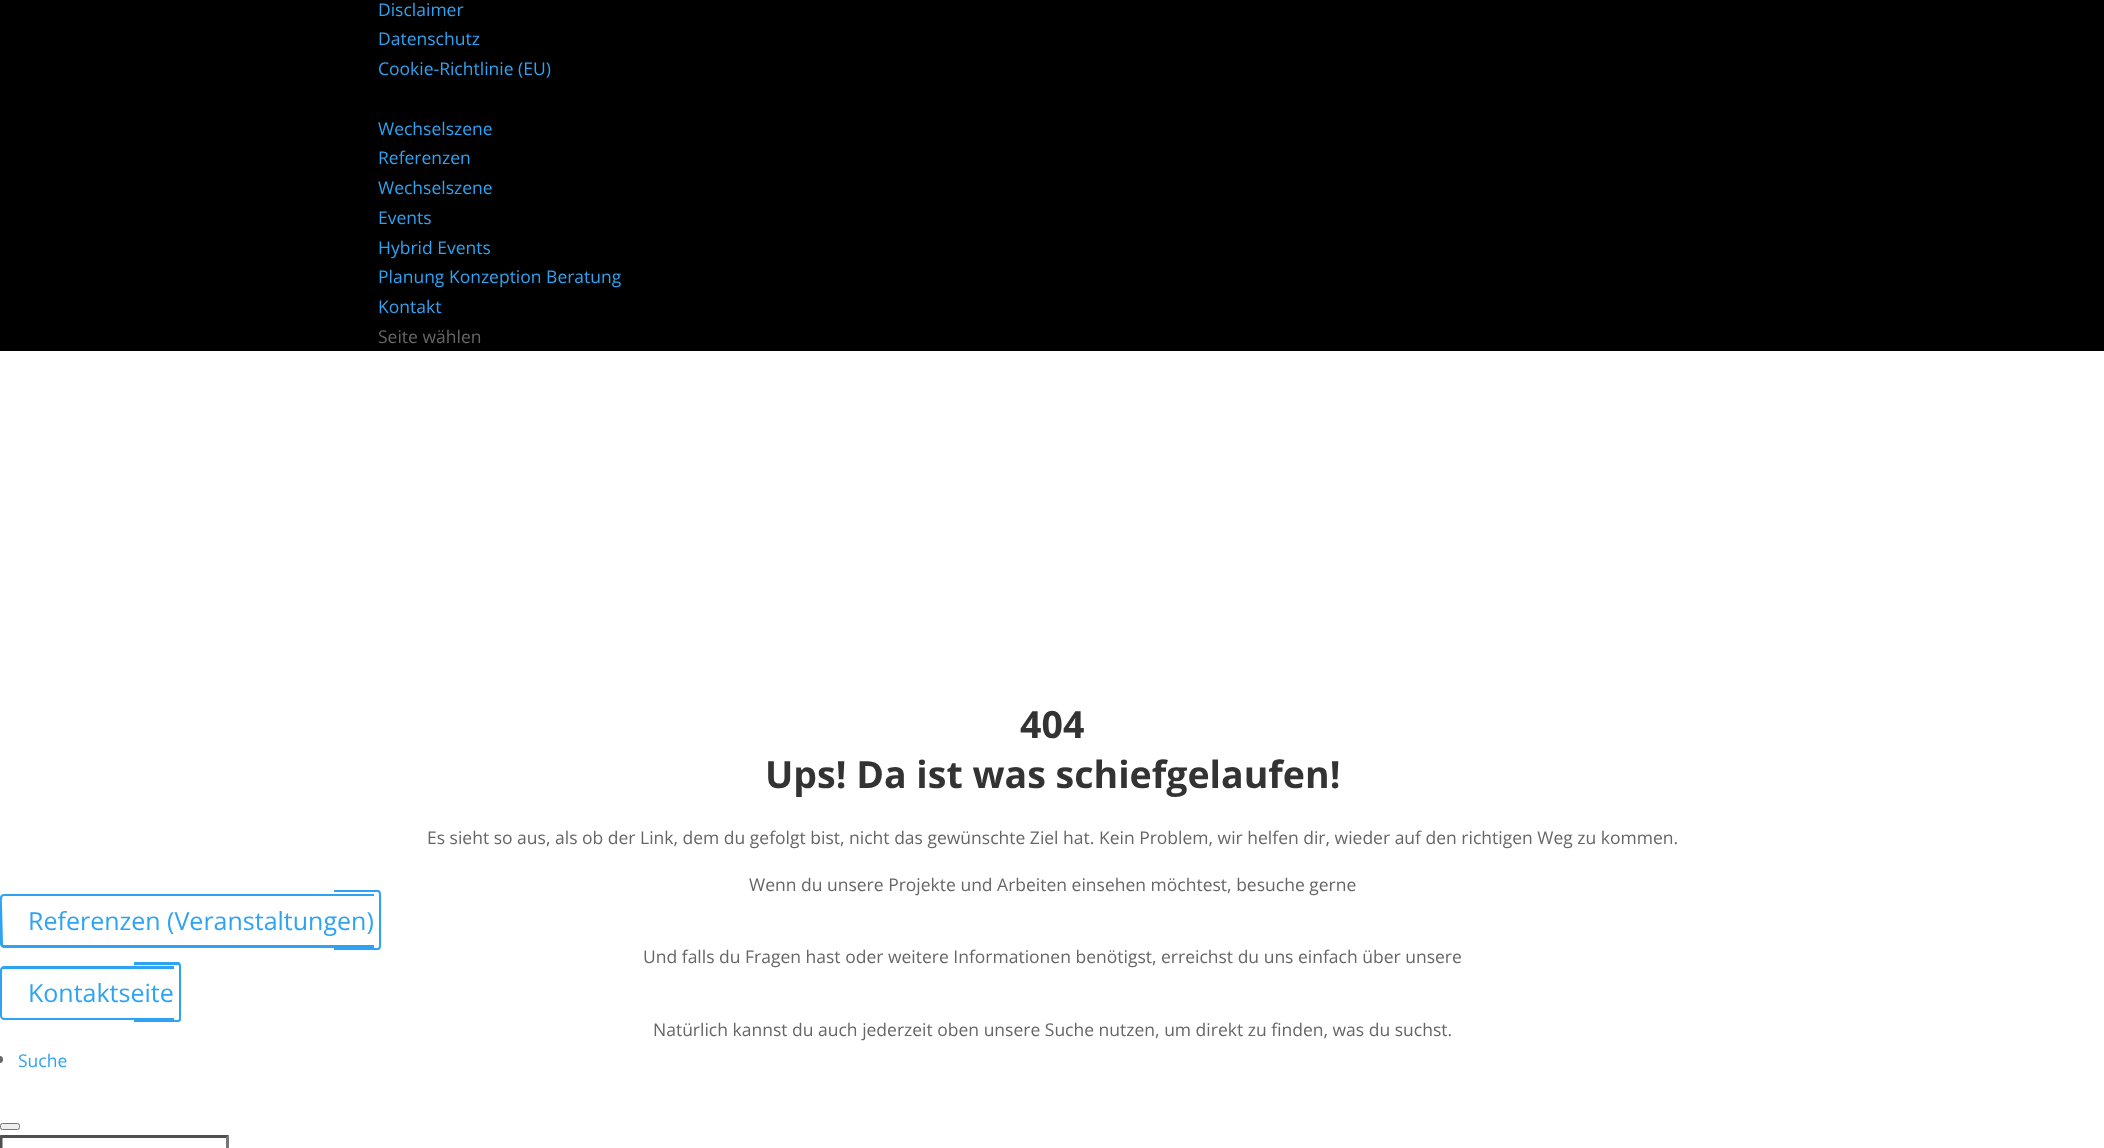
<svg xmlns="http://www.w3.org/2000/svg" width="2104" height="1148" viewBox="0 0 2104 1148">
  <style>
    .t1 { font: 17.5px Open Sans; fill: #2ea3f2; }
    .t2 { font: 17.5px Open Sans; fill: #666; }
    .t3 { font: bold 37.5px Open Sans; fill: #333; }
    .t4 { font: 25px Open Sans; fill: #2ea3f2; }
  </style>
  <rect width="100%" height="100%" fill="#000"/>
  <text x="378" y="16" class="t1">Disclaimer</text>
  <text x="378" y="45" class="t1">Datenschutz</text>
  <text x="378" y="75" class="t1">Cookie-Richtlinie (EU)</text>
  <text x="378" y="135" class="t1">Wechselszene</text>
  <text x="378" y="164" class="t1">Referenzen</text>
  <text x="378" y="194" class="t1">Wechselszene</text>
  <text x="378" y="224" class="t1">Events</text>
  <text x="378" y="254" class="t1">Hybrid Events</text>
  <text x="378" y="283" class="t1">Planung Konzeption Beratung</text>
  <text x="378" y="313" class="t1">Kontakt</text>
  <text x="378" y="343" class="t2">Seite wählen</text>
  <rect x="0" y="351" width="2104" height="797" fill="#fff"/>
  <text x="1020" y="738" class="t3">404</text>
  <text x="765" y="788" class="t3">Ups! Da ist was schiefgelaufen!</text>
  <text x="427" y="844" class="t2">Es sieht so aus, als ob der Link, dem du gefolgt bist, nicht das gewünschte Ziel hat. Kein Problem, wir helfen dir, wieder auf den richtigen Weg zu kommen.</text>
  <text x="749" y="891" class="t2">Wenn du unsere Projekte und Arbeiten einsehen möchtest, besuche gerne</text>
  <path d="M4 894H374V948H4C2 948 0 946 0 944V898C0 895 2 894 4 894ZM4 896H374V945H3V944L2 905C2 903 1 896 4 896Z" fill="#2ea3f2" fill-rule="evenodd"/>
  <path d="M334 890H378C380 890 381 892 381 894V946C381 948 380 950 378 950H334ZM334 892H378C378 892 379 893 379 894V946C379 947 378 948 378 948H334Z" fill="#2ea3f2" fill-rule="evenodd"/>
  <text x="28" y="930" class="t4">Referenzen (Veranstaltungen)</text>
  <text x="643" y="963" class="t2">Und falls du Fragen hast oder weitere Informationen benötigst, erreichst du uns einfach über unsere</text>
  <path d="M4 966H174V1020H4C2 1020 0 1018 0 1016V970C0 968 2 966 4 966ZM4 969H174V1018H4C3 1018 2 1017 2 1016V970C2 969 3 969 4 969Z" fill="#2ea3f2" fill-rule="evenodd"/>
  <path d="M134 962H178C180 962 181 964 181 966V1019C181 1021 180 1022 178 1022H134ZM134 965H178C178 965 179 966 179 966V1019C179 1019 178 1020 178 1020H134Z" fill="#2ea3f2" fill-rule="evenodd"/>
  <text x="28" y="1002" class="t4">Kontaktseite</text>
  <text x="653" y="1036" class="t2">Natürlich kannst du auch jederzeit oben unsere Suche nutzen, um direkt zu finden, was du suchst.</text>
  <circle cx="-0.5" cy="1059.5" r="3.5" fill="#666"/>
  <text x="18" y="1067" class="t1">Suche</text>
  <rect x="0.5" y="1123.5" width="19" height="6" rx="2" fill="#efefef" stroke="#767676"/>
  <path d="M0 1135H229L226 1138H2Z" fill="#4f4f4f"/>
  <path d="M229 1135V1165L226 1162.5V1137.5Z" fill="#767676"/>
  <path d="M0 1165V1135L2.5 1137.5V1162.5Z" fill="#4f4f4f"/>
</svg>
